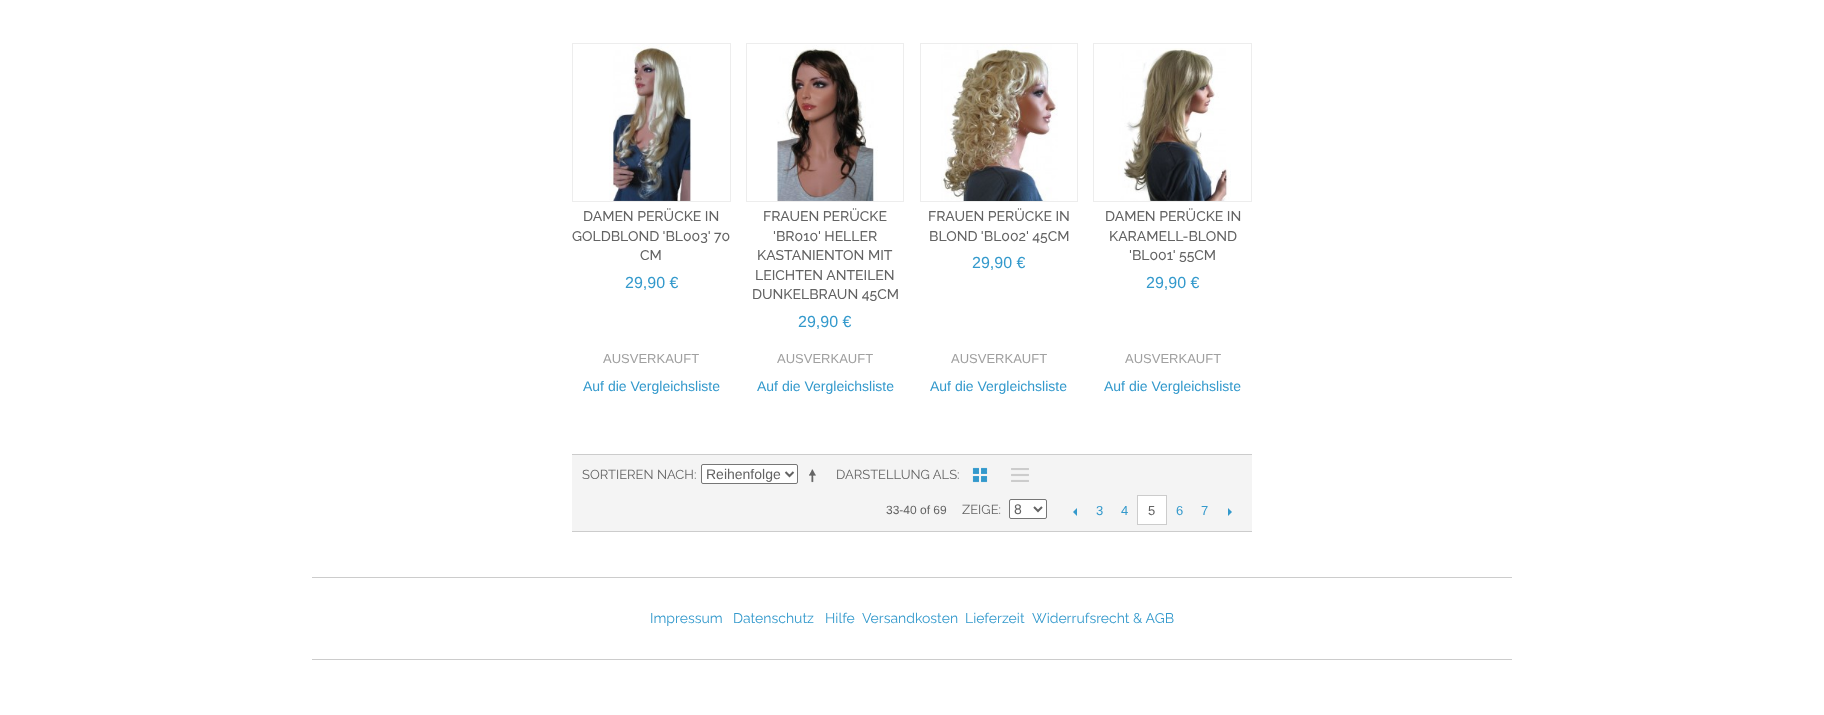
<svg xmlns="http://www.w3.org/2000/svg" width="1824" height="715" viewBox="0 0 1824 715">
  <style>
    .t1 { font: 500 14px Raleway; fill: #636363; }
    .t2 { font: 16px Liberation Sans; fill: #39c; }
    .t3 { font: 13px Liberation Sans; fill: #a0a0a0; }
    .t4 { font: 14px Liberation Sans; fill: #39c; }
    .t5 { font: 13px Raleway; fill: #636363; }
    .t6 { font: 14px Liberation Sans; fill: #636363; }
    .t7 { font: 12px Liberation Sans; fill: #636363; }
    .t8 { font: 13px Liberation Sans; fill: #39c; }
    .t9 { font: 13px Liberation Sans; fill: #636363; }
    .t10 { font: 14px Raleway; fill: #39c; }
  </style>
  <rect width="100%" height="100%" fill="#fff"/>
  <rect x="572.5" y="43.5" width="158" height="158" fill="none" stroke="#ededed"/>
  <image x="609" y="44" width="83" height="157" href="images/1.png"/>
  <text x="583" y="221" class="t1">DAMEN PERÜCKE IN</text>
  <text x="572" y="241" class="t1">GOLDBLOND 'BL003' 70</text>
  <text x="640" y="260" class="t1">CM</text>
  <text x="625" y="288" class="t2">29,90 €</text>
  <text x="603" y="363" class="t3">AUSVERKAUFT</text>
  <text x="583" y="391" class="t4">Auf die Vergleichsliste</text>
  <rect x="746.5" y="43.5" width="157" height="158" fill="none" stroke="#ededed"/>
  <image x="776" y="45" width="102" height="156" href="images/2.png"/>
  <text x="763" y="221" class="t1">FRAUEN PERÜCKE</text>
  <text x="773" y="241" class="t1">'BR010' HELLER</text>
  <text x="757" y="260" class="t1">KASTANIENTON MIT</text>
  <text x="755" y="280" class="t1">LEICHTEN ANTEILEN</text>
  <text x="752" y="299" class="t1">DUNKELBRAUN 45CM</text>
  <text x="798" y="327" class="t2">29,90 €</text>
  <text x="777" y="363" class="t3">AUSVERKAUFT</text>
  <text x="757" y="391" class="t4">Auf die Vergleichsliste</text>
  <rect x="920.5" y="43.5" width="157" height="158" fill="none" stroke="#ededed"/>
  <image x="941" y="44" width="117" height="157" href="images/3.png"/>
  <text x="928" y="221" class="t1">FRAUEN PERÜCKE IN</text>
  <text x="929" y="241" class="t1">BLOND 'BL002' 45CM</text>
  <text x="972" y="268" class="t2">29,90 €</text>
  <text x="951" y="363" class="t3">AUSVERKAUFT</text>
  <text x="930" y="391" class="t4">Auf die Vergleichsliste</text>
  <rect x="1093.5" y="43.5" width="158" height="158" fill="none" stroke="#ededed"/>
  <image x="1118" y="48" width="113" height="153" href="images/4.png"/>
  <text x="1105" y="221" class="t1">DAMEN PERÜCKE IN</text>
  <text x="1109" y="241" class="t1">KARAMELL-BLOND</text>
  <text x="1129" y="260" class="t1">'BL001' 55CM</text>
  <text x="1146" y="288" class="t2">29,90 €</text>
  <text x="1125" y="363" class="t3">AUSVERKAUFT</text>
  <text x="1104" y="391" class="t4">Auf die Vergleichsliste</text>
  <rect x="572" y="455" width="680" height="76" fill="#f4f4f4"/>
  <rect x="572" y="454" width="680" height="1" fill="#ccc"/>
  <rect x="572" y="531" width="680" height="1" fill="#ccc"/>
  <text x="582" y="479" class="t5">SORTIEREN NACH:</text>
  <rect x="701.5" y="464.5" width="96" height="19" rx="1.5" fill="#fff" stroke="#767676"/>
  <path d="M785.5 472L789.5 476L793.5 472" fill="none" stroke="#636363" stroke-width="2"/>
  <text x="706" y="479" class="t6">Reihenfolge</text>
  <image x="809" y="469" width="7" height="14" href="images/5.png"/>
  <text x="836" y="479" class="t5">DARSTELLUNG ALS:</text>
  <image x="972" y="467" width="16" height="16" href="images/6.png"/>
  <image x="1011" y="468" width="18" height="14" href="images/7.png"/>
  <text x="886" y="514" class="t7">33-40 of 69</text>
  <text x="962" y="514" class="t5">ZEIGE:</text>
  <rect x="1009.5" y="499.5" width="37" height="19" rx="1.5" fill="#fff" stroke="#767676"/>
  <path d="M1034 507L1038 511L1042 507" fill="none" stroke="#636363" stroke-width="2"/>
  <text x="1014" y="514" class="t6">8</text>
  <path d="M1077 508V516L1073 512Z" fill="#39c"/>
  <text x="1096" y="515" class="t8">3</text>
  <text x="1121" y="515" class="t8">4</text>
  <rect x="1137.5" y="495.5" width="29" height="29" fill="#fff" stroke="#ccc"/>
  <text x="1148" y="515" class="t9">5</text>
  <text x="1176" y="515" class="t8">6</text>
  <text x="1201" y="515" class="t8">7</text>
  <path d="M1228 516V508L1232 512Z" fill="#39c"/>
  <rect x="312" y="577" width="1200" height="1" fill="#ccc"/>
  <text x="650" y="623" class="t10">Impressum</text>
  <text x="733" y="623" class="t10">Datenschutz</text>
  <text x="825" y="623" class="t10">Hilfe</text>
  <text x="862" y="623" class="t10">Versandkosten</text>
  <text x="965" y="623" class="t10">Lieferzeit</text>
  <text x="1032" y="623" class="t10">Widerrufsrecht &amp; AGB</text>
  <rect x="312" y="659" width="1200" height="1" fill="#ccc"/>
</svg>
